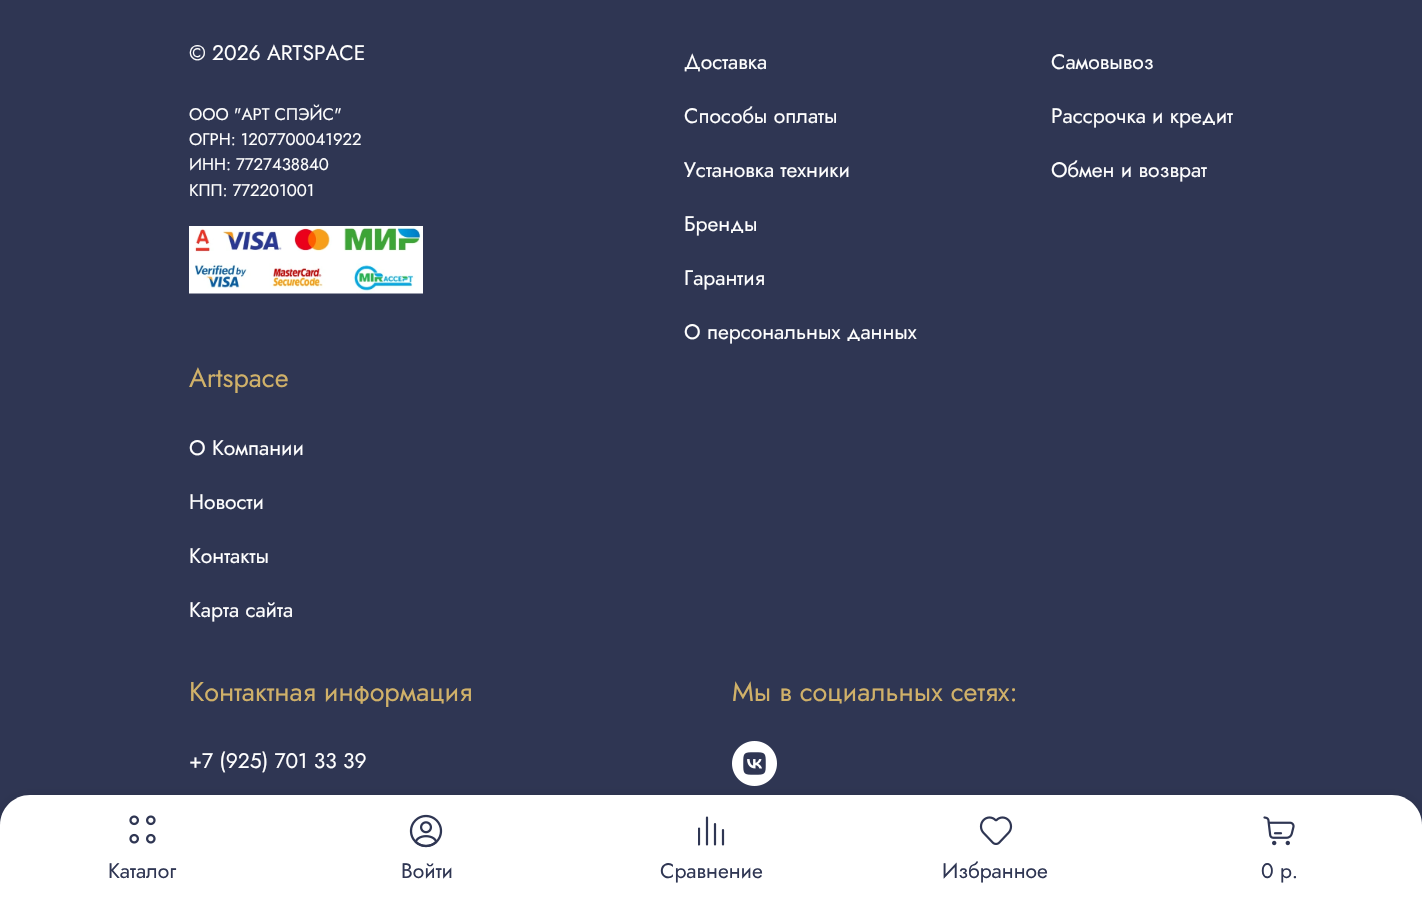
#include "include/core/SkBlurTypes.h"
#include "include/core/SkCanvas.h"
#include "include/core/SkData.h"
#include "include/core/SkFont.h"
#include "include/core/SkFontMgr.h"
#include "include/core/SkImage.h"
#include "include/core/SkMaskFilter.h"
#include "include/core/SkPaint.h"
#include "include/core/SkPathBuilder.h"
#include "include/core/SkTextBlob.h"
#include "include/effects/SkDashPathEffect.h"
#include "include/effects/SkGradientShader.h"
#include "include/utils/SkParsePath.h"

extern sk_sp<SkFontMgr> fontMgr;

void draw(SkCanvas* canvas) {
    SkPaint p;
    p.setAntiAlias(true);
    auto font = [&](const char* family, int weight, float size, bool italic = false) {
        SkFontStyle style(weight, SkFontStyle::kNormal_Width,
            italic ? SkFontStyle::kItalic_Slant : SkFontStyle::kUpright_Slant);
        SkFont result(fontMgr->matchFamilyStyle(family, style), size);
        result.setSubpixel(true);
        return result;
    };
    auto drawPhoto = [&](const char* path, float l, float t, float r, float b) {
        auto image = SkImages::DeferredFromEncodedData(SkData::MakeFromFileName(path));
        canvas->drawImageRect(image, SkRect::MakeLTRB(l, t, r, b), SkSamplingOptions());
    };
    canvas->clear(0xFF2F3653);
    auto font1 = font("Jost", 400, 21);
    p.setColor(0xFFFFFFFF);
    canvas->drawString("© 2026 ARTSPACE", 189, 60, font1, p);
    auto font2 = font("Jost", 400, 16.75f);
    {
        const struct { const char* s; float x, y; } items[] = {
            {"ООО \"АРТ СПЭЙС\"", 189, 120},
            {"ОГРН: 1207700041922", 189, 145},
            {"ИНН: 7727438840", 189, 170},
            {"КПП: 772201001", 189, 196},
        };
        for (auto [s, x, y] : items) {
            canvas->drawString(s, x, y, font2, p);
        }
    }
    drawPhoto("media/1.png", 189, 226, 423, 294);
    {
        const struct { const char* s; float x, y; } items[] = {
            {"Доставка", 684, 69},
            {"Способы оплаты", 684, 123},
            {"Установка техники", 684, 177},
            {"Бренды", 684, 231},
            {"Гарантия", 684, 285},
            {"О персональных данных", 684, 339},
            {"Самовывоз", 1051, 69},
            {"Рассрочка и кредит", 1051, 123},
            {"Обмен и возврат", 1051, 177},
        };
        for (auto [s, x, y] : items) {
            canvas->drawString(s, x, y, font1, p);
        }
    }
    auto font3 = font("Jost", 400, 27);
    p.setColor(0xFFD0B169);
    canvas->drawString("Artspace", 189, 387, font3, p);
    p.setColor(0xFFFFFFFF);
    {
        const struct { const char* s; float x, y; } items[] = {
            {"О Компании", 189, 455},
            {"Новости", 189, 509},
            {"Контакты", 189, 563},
            {"Карта сайта", 189, 617},
        };
        for (auto [s, x, y] : items) {
            canvas->drawString(s, x, y, font1, p);
        }
    }
    p.setColor(0xFFD0B169);
    canvas->drawString("Контактная информация", 189, 701, font3, p);
    p.setColor(0xFFFFFFFF);
    canvas->drawString("+7 (925) 701 33 39", 189, 768, font1, p);
    p.setColor(0xFFD0B169);
    canvas->drawString("Мы в социальных сетях:", 732, 701, font3, p);
    drawPhoto("media/2.png", 732, 741, 777, 786);
    p.setColor(0x26000000);
    p.setMaskFilter(SkMaskFilter::MakeBlur(kNormal_SkBlurStyle, 6));
    canvas->drawRoundRect(SkRect::MakeLTRB(0, 798, 1422, 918), 30, 30, p);
    p.setMaskFilter(nullptr);
    p.setColor(0xFFFFFFFF);
    canvas->drawPath(SkPathBuilder().moveTo(30, 795).lineTo(1392, 795).cubicTo(1408.5f, 795, 1422, 808.5f, 1422, 825).lineTo(1422, 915).lineTo(0, 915).lineTo(0, 825).cubicTo(0, 808.5f, 13.5f, 795, 30, 795).close().detach(), p);
    drawPhoto("media/3.png", 129, 815, 156, 844);
    p.setColor(0xFF2F3653);
    canvas->drawString("Каталог", 108, 878, font1, p);
    drawPhoto("media/4.png", 409, 814, 443, 848);
    canvas->drawString("Войти", 401, 878, font1, p);
    canvas->save();
    canvas->clipRect(SkRect::MakeLTRB(698, 816, 725, 846));
    p.setStyle(SkPaint::kStroke_Style);
    p.setStrokeWidth(2.2f);
    p.setStrokeCap(SkPaint::kRound_Cap);
    p.setStrokeJoin(SkPaint::kRound_Join);
    canvas->drawPath(SkPathBuilder().moveTo(699, 828.5f).lineTo(699, 844.5f).detach(), p);
    canvas->restore();
    canvas->drawPath(SkPathBuilder().moveTo(715, 824).lineTo(715, 844.5f).moveTo(707, 817.5f).lineTo(707, 844.5f).detach(), p);
    canvas->drawPath(SkPathBuilder().moveTo(723, 830).lineTo(723, 844.5f).detach(), p);
    p.setStyle(SkPaint::kFill_Style);
    canvas->drawString("Сравнение", 660, 878, font1, p);
    drawPhoto("media/5.png", 979, 816, 1013, 845);
    canvas->drawString("Избранное", 942, 878, font1, p);
    drawPhoto("media/6.png", 1263, 816, 1295, 846);
    canvas->drawString("0 р.", 1261, 878, font1, p);
}
